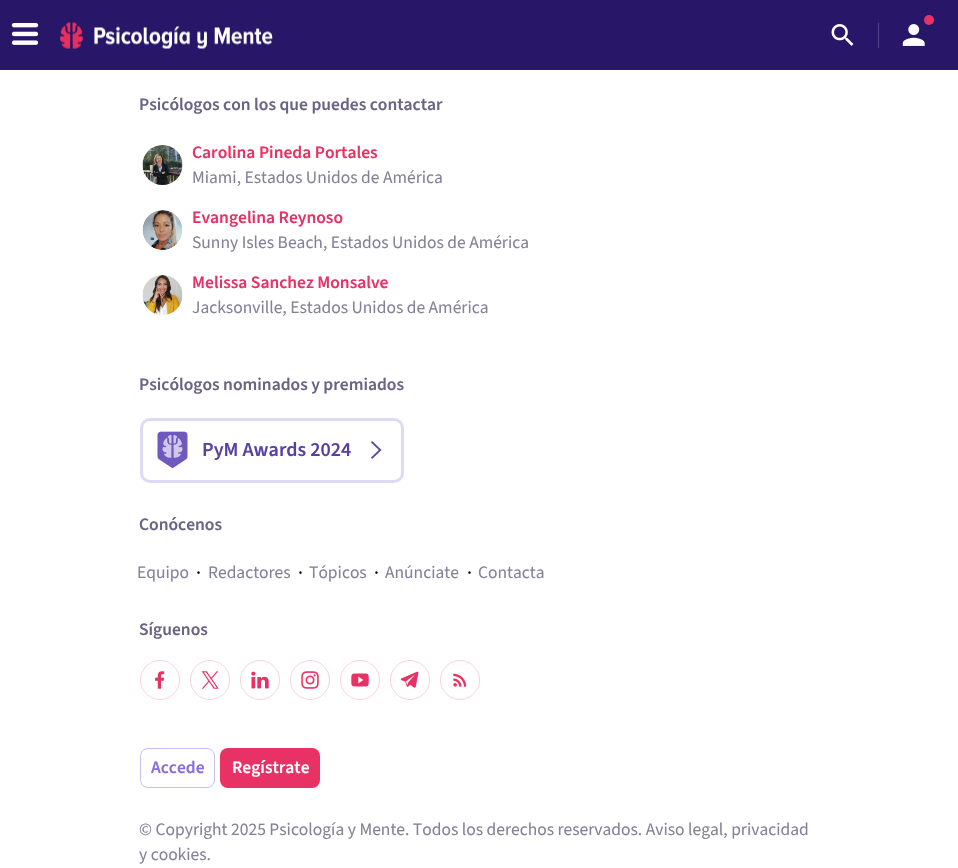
#include "include/core/SkBlurTypes.h"
#include "include/core/SkCanvas.h"
#include "include/core/SkData.h"
#include "include/core/SkFont.h"
#include "include/core/SkFontMgr.h"
#include "include/core/SkImage.h"
#include "include/core/SkMaskFilter.h"
#include "include/core/SkPaint.h"
#include "include/core/SkPathBuilder.h"
#include "include/core/SkTextBlob.h"
#include "include/effects/SkDashPathEffect.h"
#include "include/effects/SkGradientShader.h"
#include "include/utils/SkParsePath.h"

extern sk_sp<SkFontMgr> fontMgr;

void draw(SkCanvas* canvas) {
    SkPaint p;
    p.setAntiAlias(true);
    auto font = [&](const char* family, int weight, float size, bool italic = false) {
        SkFontStyle style(weight, SkFontStyle::kNormal_Width,
            italic ? SkFontStyle::kItalic_Slant : SkFontStyle::kUpright_Slant);
        SkFont result(fontMgr->matchFamilyStyle(family, style), size);
        result.setSubpixel(true);
        return result;
    };
    auto drawPhoto = [&](const char* path, float l, float t, float r, float b) {
        auto image = SkImages::DeferredFromEncodedData(SkData::MakeFromFileName(path));
        canvas->drawImageRect(image, SkRect::MakeLTRB(l, t, r, b), SkSamplingOptions());
    };
    canvas->clear(0xFFFFFFFF);
    p.setColor(0xFF281769);
    canvas->drawRect(SkRect::MakeLTRB(0, 0, 958, 70), p);
    drawPhoto("media/1.png", 11, 23, 39, 45);
    drawPhoto("media/2.png", 60, 22, 273, 49);
    drawPhoto("media/3.png", 831, 24, 854, 46);
    p.setColor(0xFF534587);
    canvas->drawRect(SkRect::MakeLTRB(878, 23, 879, 48), p);
    drawPhoto("media/4.png", 902, 24, 925, 46);
    p.setColor(0xFFE83164);
    canvas->drawCircle(929, 20, 5, p);
    auto font1 = font("Source Sans 3", 600, 17.5f);
    p.setColor(0xFF6A6383);
    canvas->drawString("Psicólogos con los que puedes contactar", 139, 110, font1, p);
    drawPhoto("media/5.png", 142, 145, 183, 185);
    p.setColor(0xFFE83164);
    canvas->drawString("Carolina Pineda Portales", 192, 158, font1, p);
    auto font2 = font("Source Sans 3", 400, 17.5f);
    p.setColor(0xFF868198);
    canvas->drawString("Miami, Estados Unidos de América", 192, 183, font2, p);
    drawPhoto("media/6.png", 142, 210, 183, 250);
    p.setColor(0xFFE83164);
    canvas->drawString("Evangelina Reynoso", 192, 223, font1, p);
    p.setColor(0xFF868198);
    canvas->drawString("Sunny Isles Beach, Estados Unidos de América", 192, 248, font2, p);
    drawPhoto("media/7.png", 142, 275, 183, 315);
    p.setColor(0xFFE83164);
    canvas->drawString("Melissa Sanchez Monsalve", 192, 288, font1, p);
    p.setColor(0xFF868198);
    canvas->drawString("Jacksonville, Estados Unidos de América", 192, 313, font2, p);
    p.setColor(0xFF6A6383);
    canvas->drawString("Psicólogos nominados y premiados", 139, 390, font1, p);
    p.setStyle(SkPaint::kStroke_Style);
    p.setStrokeWidth(3);
    p.setColor(0xFFDFDAF1);
    canvas->drawRoundRect(SkRect::MakeLTRB(141.5f, 419.5f, 402.5f, 481.5f), 8.5f, 8.5f, p);
    drawPhoto("media/8.png", 157, 431, 188, 469);
    auto font3 = font("Source Sans 3", 600, 20);
    p.setStyle(SkPaint::kFill_Style);
    p.setColor(0xFF5640A6);
    canvas->drawString("PyM Awards 2024", 202, 456, font3, p);
    canvas->drawPath(SkPathBuilder().moveTo(371, 442.5f).lineTo(372, 441).lineTo(381.5f, 450).lineTo(372, 459).lineTo(371, 457.5f).lineTo(379, 450).close().detach(), p);
    p.setColor(0xFF6A6383);
    canvas->drawString("Conócenos", 139, 530, font1, p);
    p.setColor(0xFF868198);
    canvas->drawString("Equipo", 137, 578, font2, p);
    auto font4 = font("Source Sans 3", 400, 20);
    p.setColor(0xFF000000);
    canvas->drawString("·", 196, 579, font4, p);
    p.setColor(0xFF868198);
    canvas->drawString("Redactores", 208, 578, font2, p);
    p.setColor(0xFF000000);
    canvas->drawString("·", 298, 579, font4, p);
    p.setColor(0xFF868198);
    canvas->drawString("Tópicos", 309, 578, font2, p);
    p.setColor(0xFF000000);
    canvas->drawString("·", 374, 579, font4, p);
    p.setColor(0xFF868198);
    canvas->drawString("Anúnciate", 385, 578, font2, p);
    p.setColor(0xFF000000);
    canvas->drawString("·", 467, 579, font4, p);
    p.setColor(0xFF868198);
    canvas->drawString("Contacta", 478, 578, font2, p);
    p.setColor(0xFF6A6383);
    canvas->drawString("Síguenos", 139, 635, font1, p);
    p.setStyle(SkPaint::kStroke_Style);
    p.setStrokeWidth(1);
    p.setColor(0xFFFAD1DD);
    canvas->drawCircle(160, 680, 19.5f, p);
    drawPhoto("media/9.png", 155, 671, 165, 689);
    canvas->drawCircle(210, 680, 19.5f, p);
    drawPhoto("media/10.png", 201, 671, 219, 689);
    canvas->drawCircle(260, 680, 19.5f, p);
    drawPhoto("media/11.png", 251, 671, 269, 689);
    canvas->drawCircle(310, 680, 19.5f, p);
    drawPhoto("media/12.png", 301, 671, 319, 689);
    canvas->drawCircle(360, 680, 19.5f, p);
    drawPhoto("media/13.png", 351, 673, 369, 687);
    canvas->drawCircle(410, 680, 19.5f, p);
    drawPhoto("media/14.png", 400, 671, 419, 688);
    canvas->drawCircle(460, 680, 19.5f, p);
    drawPhoto("media/15.png", 453, 673, 467, 687);
    p.setColor(0xFFCBC0F1);
    canvas->drawRoundRect(SkRect::MakeLTRB(140.5f, 748.5f, 214.5f, 787.5f), 7.5f, 7.5f, p);
    p.setStyle(SkPaint::kFill_Style);
    p.setColor(0xFF856DDF);
    canvas->drawString("Accede", 151, 773, font1, p);
    p.setColor(0xFFE83164);
    canvas->drawRoundRect(SkRect::MakeLTRB(220, 748, 320, 788), 8, 8, p);
    p.setColor(0xFFFFFFFF);
    canvas->drawString("Regístrate", 232, 773, font1, p);
    p.setColor(0xFF868198);
    canvas->drawString("© Copyright 2025 Psicología y Mente. Todos los derechos reservados. Aviso legal, privacidad", 139, 835, font2, p);
    canvas->drawString("y cookies.", 139, 860, font2, p);
}
